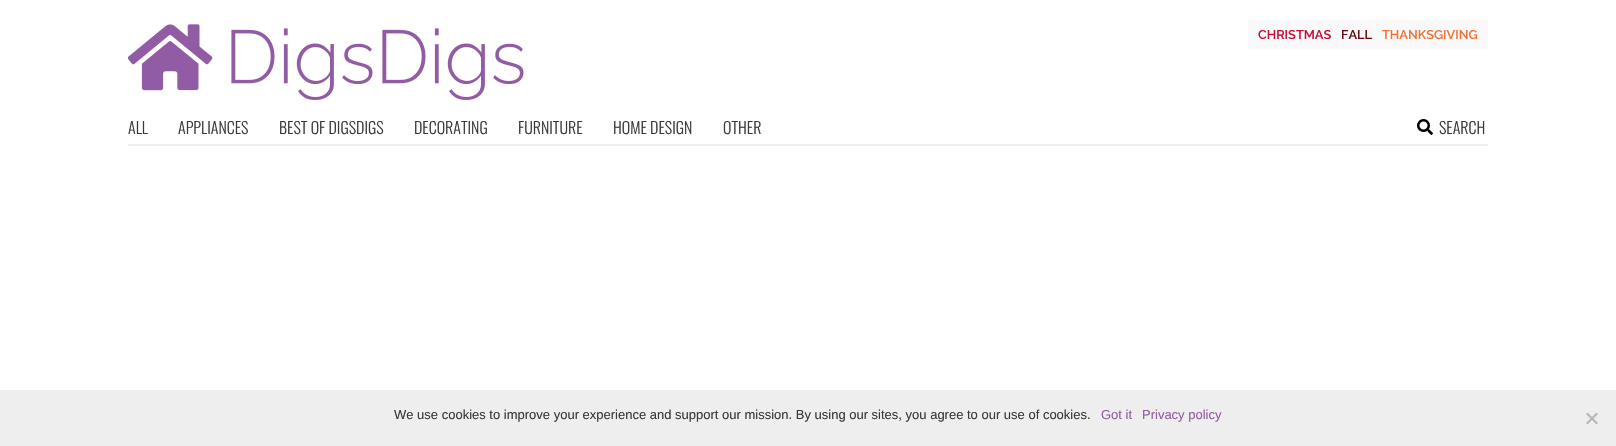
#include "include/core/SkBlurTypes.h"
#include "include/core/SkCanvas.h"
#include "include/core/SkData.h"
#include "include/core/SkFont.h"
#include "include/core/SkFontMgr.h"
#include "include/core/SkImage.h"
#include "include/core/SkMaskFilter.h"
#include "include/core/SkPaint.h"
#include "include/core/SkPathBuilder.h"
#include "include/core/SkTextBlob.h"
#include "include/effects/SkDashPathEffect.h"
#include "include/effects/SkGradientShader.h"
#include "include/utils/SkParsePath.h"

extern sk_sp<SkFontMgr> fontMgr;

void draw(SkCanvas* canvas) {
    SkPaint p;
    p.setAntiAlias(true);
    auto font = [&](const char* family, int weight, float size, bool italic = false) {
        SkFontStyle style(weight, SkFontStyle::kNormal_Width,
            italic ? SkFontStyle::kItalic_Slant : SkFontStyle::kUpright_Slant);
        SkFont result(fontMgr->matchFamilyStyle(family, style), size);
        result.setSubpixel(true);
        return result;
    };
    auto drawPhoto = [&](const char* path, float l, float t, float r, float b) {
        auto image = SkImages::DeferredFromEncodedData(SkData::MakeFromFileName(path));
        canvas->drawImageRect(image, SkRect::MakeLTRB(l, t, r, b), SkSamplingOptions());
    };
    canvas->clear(0xFFFFFFFF);
    drawPhoto("media/1.png", 128, 24, 524, 100);
    p.setColor(0xFFF9F9F9);
    canvas->drawRect(SkRect::MakeLTRB(1248, 20, 1488, 49), p);
    auto font1 = font("Raleway", 100, 12.75f);
    p.setColor(0xFFC41039);
    canvas->drawString("CHRISTMAS", 1258, 39, font1, p);
    p.setColor(0xFF680D13);
    canvas->drawString("FALL", 1341, 39, font1, p);
    p.setColor(0xFFF07236);
    canvas->drawString("THANKSGIVING", 1382, 39, font1, p);
    p.setColor(0xFFEEEEEE);
    canvas->drawRect(SkRect::MakeLTRB(128, 144, 1488, 146), p);
    auto font2 = font("Oswald", 300, 16);
    p.setColor(0xFF383838);
    {
        const struct { const char* s; float x, y; } items[] = {
            {"ALL", 128, 134},
            {"APPLIANCES", 178, 134},
            {"BEST OF DIGSDIGS", 279, 134},
            {"DECORATING", 414, 134},
            {"FURNITURE", 518, 134},
            {"HOME DESIGN", 613, 134},
            {"OTHER", 723, 134},
        };
        for (auto [s, x, y] : items) {
            canvas->drawString(s, x, y, font2, p);
        }
    }
    drawPhoto("media/2.png", 1417, 119, 1433, 135);
    canvas->drawString("SEARCH", 1439, 134, font2, p);
    p.setColor(0xFFEEEEEE);
    canvas->drawRect(SkRect::MakeLTRB(0, 390, 1616, 446), p);
    auto font3 = font("Liberation Sans", 400, 13);
    p.setColor(0xFF383838);
    canvas->drawString("We use cookies to improve your experience and support our mission. By using our sites, you agree to our use of cookies.", 394, 419, font3, p);
    p.setColor(0xFF925CA4);
    canvas->drawString("Got it", 1101, 419, font3, p);
    canvas->drawString("Privacy policy", 1142, 419, font3, p);
    p.setColor(0xFFB7B7B7);
    canvas->drawPath(SkPathBuilder().moveTo(1596.5f, 412.5f).lineTo(1598, 414).lineTo(1587.5f, 424.5f).lineTo(1586, 423).close().detach(), p);
    canvas->drawPath(SkPathBuilder().moveTo(1586, 414).lineTo(1587.5f, 412.5f).lineTo(1598, 423).lineTo(1596.5f, 424.5f).close().detach(), p);
}
